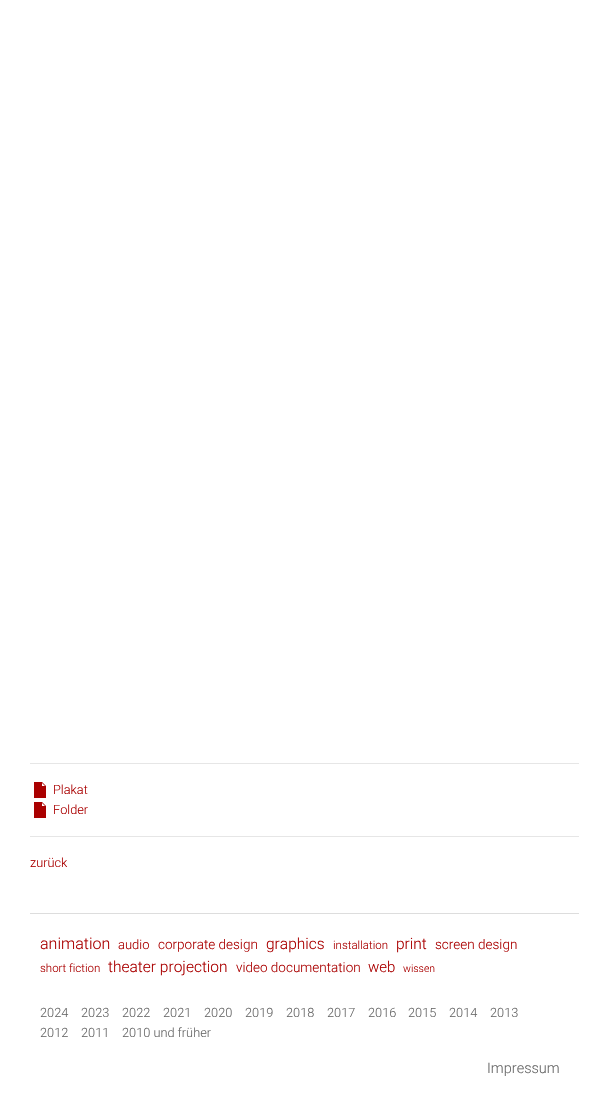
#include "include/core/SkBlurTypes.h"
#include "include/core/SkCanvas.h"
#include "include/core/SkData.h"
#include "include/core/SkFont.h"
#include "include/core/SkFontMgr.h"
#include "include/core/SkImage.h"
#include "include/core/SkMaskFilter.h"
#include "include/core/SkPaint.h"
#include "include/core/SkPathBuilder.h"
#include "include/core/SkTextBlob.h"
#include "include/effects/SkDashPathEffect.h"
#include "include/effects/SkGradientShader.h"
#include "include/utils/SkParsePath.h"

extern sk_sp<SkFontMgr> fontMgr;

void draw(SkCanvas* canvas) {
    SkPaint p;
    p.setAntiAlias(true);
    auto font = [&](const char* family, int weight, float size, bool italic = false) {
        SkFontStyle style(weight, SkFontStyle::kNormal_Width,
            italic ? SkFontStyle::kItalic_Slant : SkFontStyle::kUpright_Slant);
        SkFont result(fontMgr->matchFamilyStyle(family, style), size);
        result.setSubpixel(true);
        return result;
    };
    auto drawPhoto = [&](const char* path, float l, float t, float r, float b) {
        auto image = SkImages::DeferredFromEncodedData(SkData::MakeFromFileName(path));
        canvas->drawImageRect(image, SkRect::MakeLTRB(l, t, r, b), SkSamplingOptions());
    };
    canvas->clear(0xFFFFFFFF);
    p.setColor(0xFFE6E6E6);
    canvas->drawRect(SkRect::MakeLTRB(30, 763, 579, 764), p);
    drawPhoto("media/1.png", 34, 782, 46, 798);
    auto font1 = font("Roboto", 300, 12.75f);
    p.setColor(0xFFAA0000);
    canvas->drawString("Plakat", 53, 794, font1, p);
    drawPhoto("media/1.png", 34, 802, 46, 818);
    canvas->drawString("Folder", 53, 814, font1, p);
    p.setColor(0xFFE6E6E6);
    canvas->drawRect(SkRect::MakeLTRB(30, 836, 579, 837), p);
    p.setColor(0xFFAA0000);
    canvas->drawString("zurück", 30, 867, font1, p);
    p.setColor(0xFFDDDDDD);
    canvas->drawRect(SkRect::MakeLTRB(30, 913, 579, 914), p);
    auto font2 = font("Roboto", 300, 16);
    p.setColor(0xFFAA0000);
    canvas->drawString("animation", 40, 949, font2, p);
    auto font3 = font("Roboto", 300, 13);
    canvas->drawString("audio", 118, 949, font3, p);
    auto font4 = font("Roboto", 300, 13.5f);
    canvas->drawString("corporate design", 158, 949, font4, p);
    auto font5 = font("Roboto", 300, 15.5f);
    canvas->drawString("graphics", 266, 949, font5, p);
    auto font6 = font("Roboto", 300, 11.5f);
    canvas->drawString("installation", 333, 949, font6, p);
    canvas->drawString("print", 396, 949, font5, p);
    canvas->drawString("screen design", 435, 949, font4, p);
    canvas->drawString("short fiction", 40, 972, font6, p);
    canvas->drawString("theater projection", 108, 972, font5, p);
    canvas->drawString("video documentation", 236, 972, font4, p);
    auto font7 = font("Roboto", 300, 15);
    canvas->drawString("web", 368, 972, font7, p);
    auto font8 = font("Roboto", 300, 10.5f);
    canvas->drawString("wissen", 403, 972, font8, p);
    p.setColor(0xFF666666);
    {
        const struct { const char* s; float x, y; } items[] = {
            {"2024", 40, 1017},
            {"2023", 81, 1017},
            {"2022", 122, 1017},
            {"2021", 163, 1017},
            {"2020", 204, 1017},
            {"2019", 245, 1017},
            {"2018", 286, 1017},
            {"2017", 327, 1017},
            {"2016", 368, 1017},
            {"2015", 408, 1017},
            {"2014", 449, 1017},
            {"2013", 490, 1017},
            {"2012", 40, 1037},
            {"2011", 81, 1037},
            {"2010 und früher", 122, 1037},
        };
        for (auto [s, x, y] : items) {
            canvas->drawString(s, x, y, font1, p);
        }
    }
    auto font9 = font("Roboto", 300, 14.5f);
    canvas->drawString("Impressum", 487, 1073, font9, p);
}
